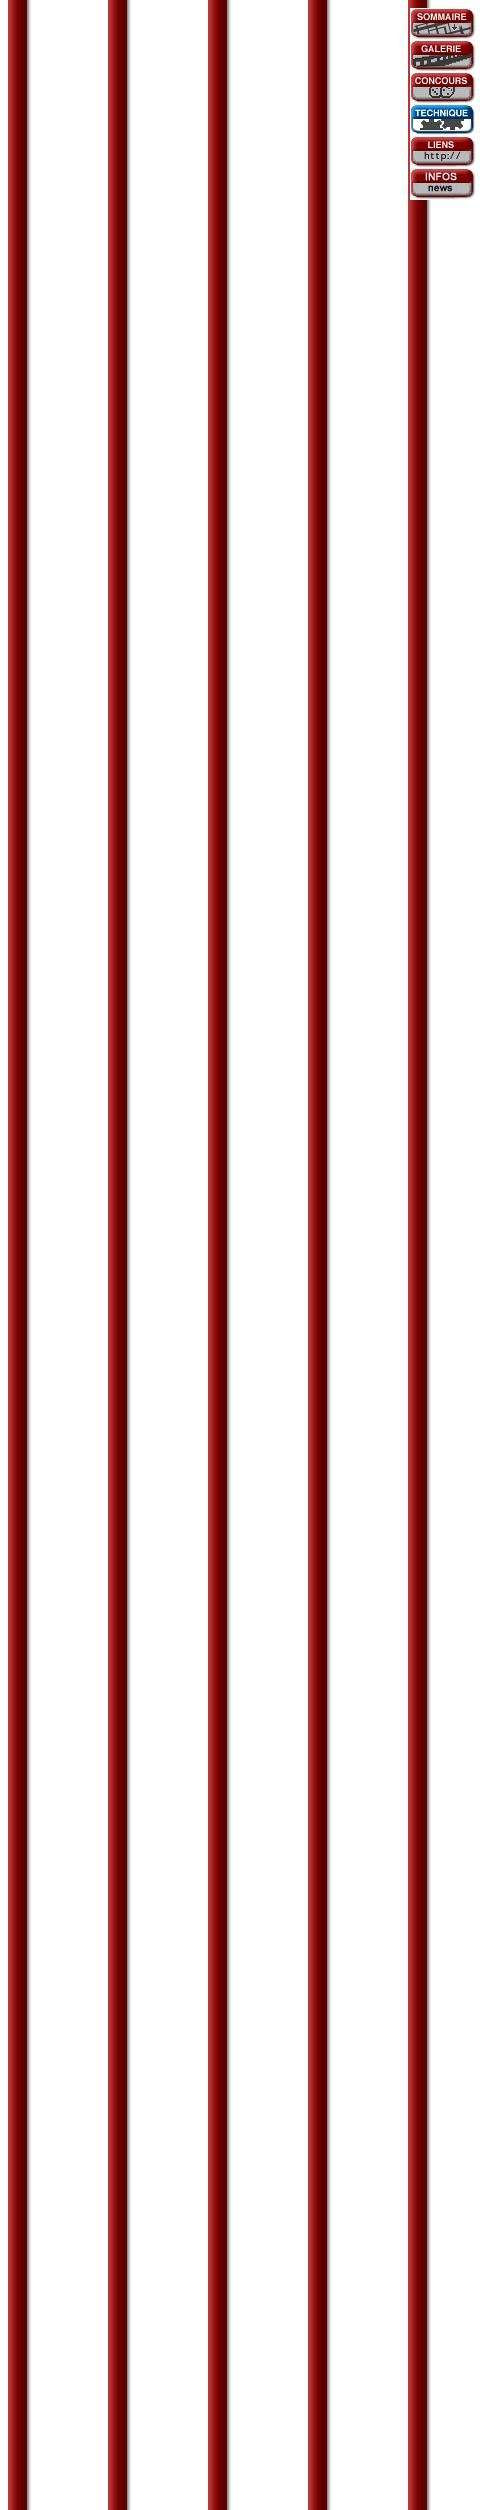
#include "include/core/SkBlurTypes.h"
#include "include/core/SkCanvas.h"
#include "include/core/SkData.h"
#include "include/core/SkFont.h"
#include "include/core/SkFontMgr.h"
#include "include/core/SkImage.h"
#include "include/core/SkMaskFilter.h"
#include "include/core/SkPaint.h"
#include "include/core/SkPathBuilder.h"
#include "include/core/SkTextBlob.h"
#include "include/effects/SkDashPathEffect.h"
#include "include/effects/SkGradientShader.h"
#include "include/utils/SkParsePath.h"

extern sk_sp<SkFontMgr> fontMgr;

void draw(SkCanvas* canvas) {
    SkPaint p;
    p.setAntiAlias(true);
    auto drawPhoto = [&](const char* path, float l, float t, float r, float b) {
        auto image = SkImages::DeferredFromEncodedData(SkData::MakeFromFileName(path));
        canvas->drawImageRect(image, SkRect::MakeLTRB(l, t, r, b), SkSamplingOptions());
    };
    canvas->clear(0xFFFFFFFF);
    drawPhoto("media/1.png", 8, 0, 431, 2510);
    drawPhoto("media/2.png", 410, 8, 476, 40);
    drawPhoto("media/3.png", 410, 40, 476, 72);
    drawPhoto("media/4.png", 410, 72, 476, 104);
    drawPhoto("media/5.png", 410, 104, 475, 136);
    drawPhoto("media/6.png", 410, 136, 476, 168);
    drawPhoto("media/7.png", 410, 168, 476, 200);
}
